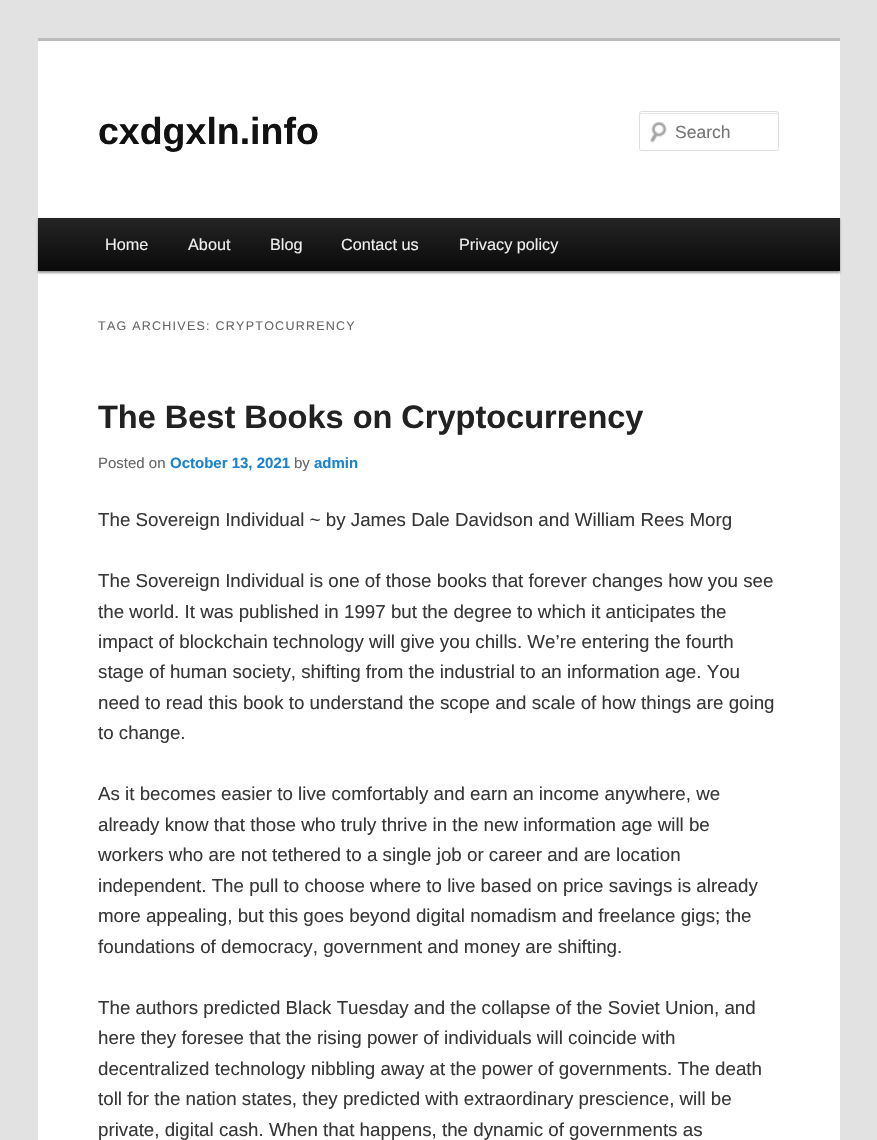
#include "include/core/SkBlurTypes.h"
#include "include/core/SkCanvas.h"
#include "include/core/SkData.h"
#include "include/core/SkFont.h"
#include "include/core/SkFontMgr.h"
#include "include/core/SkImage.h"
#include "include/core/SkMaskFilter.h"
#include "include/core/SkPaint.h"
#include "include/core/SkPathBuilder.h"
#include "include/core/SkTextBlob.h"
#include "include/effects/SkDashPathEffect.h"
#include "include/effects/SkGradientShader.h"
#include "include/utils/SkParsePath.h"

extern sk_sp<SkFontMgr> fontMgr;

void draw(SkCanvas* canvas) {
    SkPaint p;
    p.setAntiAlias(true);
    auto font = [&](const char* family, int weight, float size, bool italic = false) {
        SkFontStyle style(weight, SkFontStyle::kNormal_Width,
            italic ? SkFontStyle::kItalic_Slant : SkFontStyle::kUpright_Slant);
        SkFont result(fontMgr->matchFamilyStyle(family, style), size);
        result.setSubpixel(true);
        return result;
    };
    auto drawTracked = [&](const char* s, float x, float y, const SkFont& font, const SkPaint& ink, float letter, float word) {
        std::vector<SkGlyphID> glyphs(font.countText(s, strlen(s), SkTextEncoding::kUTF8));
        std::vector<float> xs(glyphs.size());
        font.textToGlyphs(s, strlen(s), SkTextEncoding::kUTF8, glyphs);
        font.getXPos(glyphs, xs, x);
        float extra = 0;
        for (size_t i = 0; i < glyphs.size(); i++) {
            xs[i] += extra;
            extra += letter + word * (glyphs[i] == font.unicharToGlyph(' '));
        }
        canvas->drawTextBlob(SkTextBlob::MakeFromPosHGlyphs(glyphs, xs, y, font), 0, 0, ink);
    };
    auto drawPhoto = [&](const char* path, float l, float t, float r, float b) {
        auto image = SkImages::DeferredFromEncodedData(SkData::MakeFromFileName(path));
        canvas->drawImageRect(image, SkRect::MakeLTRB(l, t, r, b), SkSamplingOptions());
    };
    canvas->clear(0xFFE2E2E2);
    p.setColor(0xFFFFFFFF);
    canvas->drawRect(SkRect::MakeLTRB(38, 41, 840, 1140), p);
    p.setColor(0xFFBBBBBB);
    canvas->drawRect(SkRect::MakeLTRB(38, 38, 840, 41), p);
    auto font1 = font("Liberation Sans", 700, 37.5f);
    p.setColor(0xFF111111);
    canvas->drawString("cxdgxln.info", 98, 144, font1, p);
    drawPhoto("media/1.png", 650, 121, 667, 143);
    p.setColor(0xFFE6E6E6);
    canvas->drawPath(SkPathBuilder().moveTo(641, 114).lineTo(776, 114).cubicTo(777, 114, 778, 114, 778, 115).cubicTo(778, 114, 778, 113, 777, 113).lineTo(641, 113).cubicTo(640, 113, 640, 114, 640, 115).close().detach(), p);
    p.setStyle(SkPaint::kStroke_Style);
    p.setStrokeWidth(1);
    p.setColor(0xFFDDDDDD);
    canvas->drawRoundRect(SkRect::MakeLTRB(639.5f, 111.5f, 778.5f, 150.5f), 2, 2, p);
    auto font2 = font("Liberation Sans", 400, 17.5f);
    p.setStyle(SkPaint::kFill_Style);
    p.setColor(0xFF757575);
    canvas->drawString("Search", 675, 138, font2, p);
    p.setColor(0x66000000);
    p.setMaskFilter(SkMaskFilter::MakeBlur(kNormal_SkBlurStyle, 1));
    canvas->drawRect(SkRect::MakeLTRB(38, 219, 840, 273), p);
    p.setMaskFilter(nullptr);
    {
        const SkColor colors[] = {0xFF252525, 0xFF0A0A0A};
        const float stops[] = {0, 1};
        const SkPoint ends[] = {{439, 217}, {439, 271}};
        p.setShader(SkGradientShader::MakeLinear(ends, colors, stops, 2, SkTileMode::kClamp));
        p.setAlpha(255);
    }
    canvas->drawRect(SkRect::MakeLTRB(38, 218, 840, 271), p);
    auto font3 = font("Liberation Sans", 400, 16.25f);
    p.setShader(nullptr);
    p.setColor(0xFFEEEEEE);
    {
        const struct { const char* s; float x, y; } items[] = {
            {"Home", 105, 250},
            {"About", 188, 250},
            {"Blog", 270, 250},
            {"Contact us", 341, 250},
            {"Privacy policy", 459, 250},
        };
        for (auto [s, x, y] : items) {
            canvas->drawString(s, x, y, font3, p);
        }
    }
    auto font4 = font("Liberation Sans", 400, 12.5f);
    p.setColor(0xFF666666);
    drawTracked("TAG ARCHIVES: CRYPTOCURRENCY", 98, 330, font4, p, 1.25f, 0);
    auto font5 = font("Liberation Sans", 700, 32.5f);
    p.setColor(0xFF222222);
    canvas->drawString("The Best Books on Cryptocurrency", 98, 428, font5, p);
    auto font6 = font("Liberation Sans", 400, 15);
    p.setColor(0xFF666666);
    canvas->drawString("Posted on", 98, 468, font6, p);
    auto font7 = font("Liberation Sans", 700, 15);
    p.setColor(0xFF1982D1);
    canvas->drawString("October 13, 2021", 170, 468, font7, p);
    p.setColor(0xFF666666);
    canvas->drawString("by", 294, 468, font6, p);
    p.setColor(0xFF1982D1);
    canvas->drawString("admin", 314, 468, font7, p);
    auto font8 = font("Liberation Sans", 400, 18.75f);
    p.setColor(0xFF373737);
    {
        const struct { const char* s; float x, y; } items[] = {
            {"The Sovereign Individual ~ by James Dale Davidson and William Rees Morg", 98, 526},
            {"The Sovereign Individual is one of those books that forever changes how you see", 98, 587},
            {"the world. It was published in 1997 but the degree to which it anticipates the", 98, 618},
            {"impact of blockchain technology will give you chills. We’re entering the fourth", 98, 648},
            {"stage of human society, shifting from the industrial to an information age. You", 98, 678},
            {"need to read this book to understand the scope and scale of how things are going", 98, 709},
            {"to change.", 98, 739},
            {"As it becomes easier to live comfortably and earn an income anywhere, we", 98, 800},
            {"already know that those who truly thrive in the new information age will be", 98, 831},
            {"workers who are not tethered to a single job or career and are location", 98, 861},
            {"independent. The pull to choose where to live based on price savings is already", 98, 892},
            {"more appealing, but this goes beyond digital nomadism and freelance gigs; the", 98, 922},
            {"foundations of democracy, government and money are shifting.", 98, 953},
            {"The authors predicted Black Tuesday and the collapse of the Soviet Union, and", 98, 1014},
            {"here they foresee that the rising power of individuals will coincide with", 98, 1044},
            {"decentralized technology nibbling away at the power of governments. The death", 98, 1075},
            {"toll for the nation states, they predicted with extraordinary prescience, will be", 98, 1105},
            {"private, digital cash. When that happens, the dynamic of governments as", 98, 1136},
        };
        for (auto [s, x, y] : items) {
            canvas->drawString(s, x, y, font8, p);
        }
    }
}
